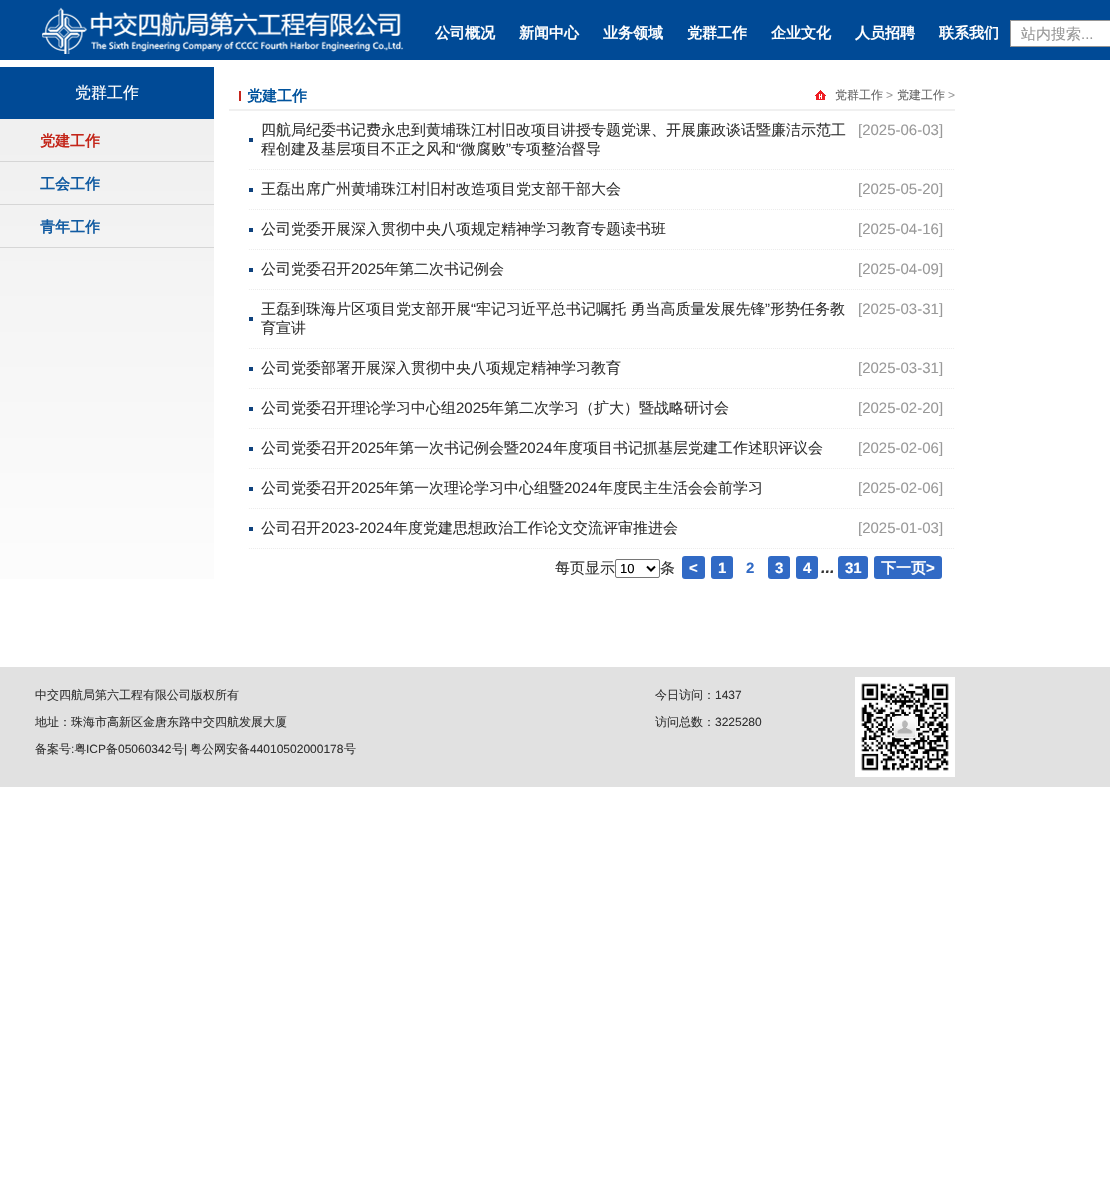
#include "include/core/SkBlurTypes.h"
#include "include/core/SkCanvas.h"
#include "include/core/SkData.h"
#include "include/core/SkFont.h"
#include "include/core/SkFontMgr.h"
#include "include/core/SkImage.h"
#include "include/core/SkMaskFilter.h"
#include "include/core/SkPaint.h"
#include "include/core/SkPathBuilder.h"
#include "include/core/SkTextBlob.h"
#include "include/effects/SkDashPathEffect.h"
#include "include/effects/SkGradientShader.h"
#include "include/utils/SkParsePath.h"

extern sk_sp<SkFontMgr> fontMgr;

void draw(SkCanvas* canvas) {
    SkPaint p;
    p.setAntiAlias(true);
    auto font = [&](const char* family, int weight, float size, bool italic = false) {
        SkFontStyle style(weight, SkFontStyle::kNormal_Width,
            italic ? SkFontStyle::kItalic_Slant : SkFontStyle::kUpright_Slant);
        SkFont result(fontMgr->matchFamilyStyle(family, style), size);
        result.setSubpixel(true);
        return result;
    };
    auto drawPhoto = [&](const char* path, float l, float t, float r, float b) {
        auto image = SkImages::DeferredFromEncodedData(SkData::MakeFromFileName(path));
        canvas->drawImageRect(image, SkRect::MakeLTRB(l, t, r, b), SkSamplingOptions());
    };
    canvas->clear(0xFFFFFFFF);
    p.setColor(0xFF004A96);
    canvas->drawRect(SkRect::MakeLTRB(0, 0, 1110, 60), p);
    drawPhoto("media/1.png", 42, 7, 404, 54);
    auto font1 = font("WenQuanYi Zen Hei", 700, 15);
    p.setColor(0xFFFFFFFF);
    {
        const struct { const char* s; float x, y; } items[] = {
            {"公司概况", 435, 38},
            {"新闻中心", 519, 38},
            {"业务领域", 603, 38},
            {"党群工作", 687, 38},
            {"企业文化", 771, 38},
            {"人员招聘", 855, 38},
            {"联系我们", 939, 38},
        };
        for (auto [s, x, y] : items) {
            canvas->drawString(s, x, y, font1, p);
        }
    }
    canvas->drawRect(SkRect::MakeLTRB(1010.5f, 20.5f, 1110.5f, 46.5f), p);
    p.setStyle(SkPaint::kStroke_Style);
    p.setStrokeWidth(1);
    p.setColor(0xFF969696);
    canvas->drawRect(SkRect::MakeLTRB(1010.5f, 20.5f, 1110.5f, 46.5f), p);
    auto font2 = font("WenQuanYi Zen Hei", 500, 15);
    p.setStyle(SkPaint::kFill_Style);
    p.setColor(0xFF999999);
    canvas->drawString("站内搜索", 1021, 39, font2, p);
    auto font3 = font("Liberation Sans", 400, 15);
    canvas->drawString("...", 1081, 39, font3, p);
    {
        const SkColor colors[] = {0xFFEEEEEE, 0xFFFFFFFF};
        const float stops[] = {0, 1};
        const SkPoint ends[] = {{107, 67}, {107, 667}};
        p.setShader(SkGradientShader::MakeLinear(ends, colors, stops, 2, SkTileMode::kClamp));
        p.setAlpha(255);
    }
    canvas->drawRect(SkRect::MakeLTRB(0, 119, 214, 579), p);
    p.setShader(nullptr);
    p.setColor(0xFF004A96);
    canvas->drawRect(SkRect::MakeLTRB(0, 67, 214, 119), p);
    auto font4 = font("WenQuanYi Zen Hei", 500, 16);
    p.setColor(0xFFFFFFFF);
    canvas->drawString("党群工作", 75, 98, font4, p);
    p.setColor(0xFFD6D6D6);
    canvas->drawRect(SkRect::MakeLTRB(0, 161, 214, 162), p);
    p.setColor(0xFFC4261A);
    canvas->drawString("党建工作", 40, 146, font1, p);
    p.setColor(0xFFD6D6D6);
    canvas->drawRect(SkRect::MakeLTRB(0, 204, 214, 205), p);
    p.setColor(0xFF115BA2);
    canvas->drawString("工会工作", 40, 189, font1, p);
    p.setColor(0xFFD6D6D6);
    canvas->drawRect(SkRect::MakeLTRB(0, 247, 214, 248), p);
    p.setColor(0xFF115BA2);
    canvas->drawString("青年工作", 40, 232, font1, p);
    p.setColor(0xFFF0F0F0);
    canvas->drawRect(SkRect::MakeLTRB(229, 109, 955, 111), p);
    p.setColor(0xFF01539D);
    canvas->drawString("党建工作", 247, 101, font1, p);
    p.setColor(0xFFC6251D);
    canvas->drawRect(SkRect::MakeLTRB(239, 91, 241, 101), p);
    drawPhoto("media/2.png", 815, 90, 826, 100);
    auto font5 = font("WenQuanYi Zen Hei", 500, 12);
    p.setColor(0xFF666666);
    canvas->drawString("党群工作", 835, 99, font5, p);
    auto font6 = font("Liberation Sans", 400, 12);
    p.setColor(0xFF999999);
    canvas->drawString(">", 886, 99, font6, p);
    p.setColor(0xFF666666);
    canvas->drawString("党建工作", 897, 99, font5, p);
    p.setColor(0xFF999999);
    canvas->drawString(">", 948, 99, font6, p);
    p.setColor(0xFF0F427D);
    canvas->drawRect(SkRect::MakeLTRB(249, 138, 253, 142), p);
    p.setStyle(SkPaint::kStroke_Style);
    p.setColor(0xFFECECEC);
    p.setPathEffect(SkDashPathEffect::Make({{1, 1}}, 0));
    canvas->drawPath(SkPathBuilder().moveTo(249, 169.5f).lineTo(955, 169.5f).detach(), p);
    p.setPathEffect(nullptr);
    p.setStyle(SkPaint::kFill_Style);
    p.setColor(0xFF333333);
    canvas->drawString("四航局纪委书记费永忠到黄埔珠江村旧改项目讲授专题党课、开展廉政谈话暨廉洁示范工", 261, 135, font2, p);
    p.setColor(0xFF999999);
    canvas->drawString("[2025-06-03]", 858, 135, font3, p);
    p.setColor(0xFF333333);
    canvas->drawString("程创建及基层项目不正之风和", 261, 154, font2, p);
    canvas->drawString("“", 456, 154, font3, p);
    canvas->drawString("微腐败", 461, 154, font2, p);
    canvas->drawString("”", 506, 154, font3, p);
    canvas->drawString("专项整治督导", 511, 154, font2, p);
    p.setColor(0xFF0F427D);
    canvas->drawRect(SkRect::MakeLTRB(249, 188, 253, 192), p);
    p.setStyle(SkPaint::kStroke_Style);
    p.setColor(0xFFECECEC);
    p.setPathEffect(SkDashPathEffect::Make({{1, 1}}, 0));
    canvas->drawPath(SkPathBuilder().moveTo(249, 209.5f).lineTo(955, 209.5f).detach(), p);
    p.setPathEffect(nullptr);
    p.setStyle(SkPaint::kFill_Style);
    p.setColor(0xFF333333);
    canvas->drawString("王磊出席广州黄埔珠江村旧村改造项目党支部干部大会", 261, 194, font2, p);
    p.setColor(0xFF999999);
    canvas->drawString("[2025-05-20]", 858, 194, font3, p);
    p.setColor(0xFF0F427D);
    canvas->drawRect(SkRect::MakeLTRB(249, 228, 253, 232), p);
    p.setStyle(SkPaint::kStroke_Style);
    p.setColor(0xFFECECEC);
    p.setPathEffect(SkDashPathEffect::Make({{1, 1}}, 0));
    canvas->drawPath(SkPathBuilder().moveTo(249, 249.5f).lineTo(955, 249.5f).detach(), p);
    p.setPathEffect(nullptr);
    p.setStyle(SkPaint::kFill_Style);
    p.setColor(0xFF333333);
    canvas->drawString("公司党委开展深入贯彻中央八项规定精神学习教育专题读书班", 261, 234, font2, p);
    p.setColor(0xFF999999);
    canvas->drawString("[2025-04-16]", 858, 234, font3, p);
    p.setColor(0xFF0F427D);
    canvas->drawRect(SkRect::MakeLTRB(249, 268, 253, 272), p);
    p.setStyle(SkPaint::kStroke_Style);
    p.setColor(0xFFECECEC);
    p.setPathEffect(SkDashPathEffect::Make({{1, 1}}, 0));
    canvas->drawPath(SkPathBuilder().moveTo(249, 289.5f).lineTo(955, 289.5f).detach(), p);
    p.setPathEffect(nullptr);
    p.setStyle(SkPaint::kFill_Style);
    p.setColor(0xFF333333);
    canvas->drawString("公司党委召开", 261, 274, font2, p);
    canvas->drawString("2025", 351, 274, font3, p);
    canvas->drawString("年第二次书记例会", 384, 274, font2, p);
    p.setColor(0xFF999999);
    canvas->drawString("[2025-04-09]", 858, 274, font3, p);
    p.setColor(0xFF0F427D);
    canvas->drawRect(SkRect::MakeLTRB(249, 317, 253, 321), p);
    p.setStyle(SkPaint::kStroke_Style);
    p.setColor(0xFFECECEC);
    p.setPathEffect(SkDashPathEffect::Make({{1, 1}}, 0));
    canvas->drawPath(SkPathBuilder().moveTo(249, 348.5f).lineTo(955, 348.5f).detach(), p);
    p.setPathEffect(nullptr);
    p.setStyle(SkPaint::kFill_Style);
    p.setColor(0xFF333333);
    canvas->drawString("王磊到珠海片区项目党支部开展", 261, 314, font2, p);
    canvas->drawString("“", 471, 314, font3, p);
    canvas->drawString("牢记习近平总书记嘱托 勇当高质量发展先锋", 476, 314, font2, p);
    canvas->drawString("”", 765, 314, font3, p);
    canvas->drawString("形势任务教", 770, 314, font2, p);
    p.setColor(0xFF999999);
    canvas->drawString("[2025-03-31]", 858, 314, font3, p);
    p.setColor(0xFF333333);
    canvas->drawString("育宣讲", 261, 333, font2, p);
    p.setColor(0xFF0F427D);
    canvas->drawRect(SkRect::MakeLTRB(249, 367, 253, 371), p);
    p.setStyle(SkPaint::kStroke_Style);
    p.setColor(0xFFECECEC);
    p.setPathEffect(SkDashPathEffect::Make({{1, 1}}, 0));
    canvas->drawPath(SkPathBuilder().moveTo(249, 388.5f).lineTo(955, 388.5f).detach(), p);
    p.setPathEffect(nullptr);
    p.setStyle(SkPaint::kFill_Style);
    p.setColor(0xFF333333);
    canvas->drawString("公司党委部署开展深入贯彻中央八项规定精神学习教育", 261, 373, font2, p);
    p.setColor(0xFF999999);
    canvas->drawString("[2025-03-31]", 858, 373, font3, p);
    p.setColor(0xFF0F427D);
    canvas->drawRect(SkRect::MakeLTRB(249, 407, 253, 411), p);
    p.setStyle(SkPaint::kStroke_Style);
    p.setColor(0xFFECECEC);
    p.setPathEffect(SkDashPathEffect::Make({{1, 1}}, 0));
    canvas->drawPath(SkPathBuilder().moveTo(249, 428.5f).lineTo(955, 428.5f).detach(), p);
    p.setPathEffect(nullptr);
    p.setStyle(SkPaint::kFill_Style);
    p.setColor(0xFF333333);
    canvas->drawString("公司党委召开理论学习中心组", 261, 413, font2, p);
    canvas->drawString("2025", 456, 413, font3, p);
    canvas->drawString("年第二次学习（扩大）暨战略研讨会", 489, 413, font2, p);
    p.setColor(0xFF999999);
    canvas->drawString("[2025-02-20]", 858, 413, font3, p);
    p.setColor(0xFF0F427D);
    canvas->drawRect(SkRect::MakeLTRB(249, 447, 253, 451), p);
    p.setStyle(SkPaint::kStroke_Style);
    p.setColor(0xFFECECEC);
    p.setPathEffect(SkDashPathEffect::Make({{1, 1}}, 0));
    canvas->drawPath(SkPathBuilder().moveTo(249, 468.5f).lineTo(955, 468.5f).detach(), p);
    p.setPathEffect(nullptr);
    p.setStyle(SkPaint::kFill_Style);
    p.setColor(0xFF333333);
    canvas->drawString("公司党委召开", 261, 453, font2, p);
    canvas->drawString("2025", 351, 453, font3, p);
    canvas->drawString("年第一次书记例会暨", 384, 453, font2, p);
    canvas->drawString("2024", 519, 453, font3, p);
    canvas->drawString("年度项目书记抓基层党建工作述职评议会", 553, 453, font2, p);
    p.setColor(0xFF999999);
    canvas->drawString("[2025-02-06]", 858, 453, font3, p);
    p.setColor(0xFF0F427D);
    canvas->drawRect(SkRect::MakeLTRB(249, 487, 253, 491), p);
    p.setStyle(SkPaint::kStroke_Style);
    p.setColor(0xFFECECEC);
    p.setPathEffect(SkDashPathEffect::Make({{1, 1}}, 0));
    canvas->drawPath(SkPathBuilder().moveTo(249, 508.5f).lineTo(955, 508.5f).detach(), p);
    p.setPathEffect(nullptr);
    p.setStyle(SkPaint::kFill_Style);
    p.setColor(0xFF333333);
    canvas->drawString("公司党委召开", 261, 493, font2, p);
    canvas->drawString("2025", 351, 493, font3, p);
    canvas->drawString("年第一次理论学习中心组暨", 384, 493, font2, p);
    canvas->drawString("2024", 564, 493, font3, p);
    canvas->drawString("年度民主生活会会前学习", 598, 493, font2, p);
    p.setColor(0xFF999999);
    canvas->drawString("[2025-02-06]", 858, 493, font3, p);
    p.setColor(0xFF0F427D);
    canvas->drawRect(SkRect::MakeLTRB(249, 527, 253, 531), p);
    p.setStyle(SkPaint::kStroke_Style);
    p.setColor(0xFFECECEC);
    p.setPathEffect(SkDashPathEffect::Make({{1, 1}}, 0));
    canvas->drawPath(SkPathBuilder().moveTo(249, 548.5f).lineTo(955, 548.5f).detach(), p);
    p.setPathEffect(nullptr);
    p.setStyle(SkPaint::kFill_Style);
    p.setColor(0xFF333333);
    canvas->drawString("公司召开", 261, 533, font2, p);
    canvas->drawString("2023-2024", 321, 533, font3, p);
    canvas->drawString("年度党建思想政治工作论文交流评审推进会", 393, 533, font2, p);
    p.setColor(0xFF999999);
    canvas->drawString("[2025-01-03]", 858, 533, font3, p);
    p.setColor(0xFF333333);
    canvas->drawString("每页显示", 555, 573, font2, p);
    p.setStyle(SkPaint::kStroke_Style);
    p.setColor(0xFF767676);
    canvas->drawRoundRect(SkRect::MakeLTRB(615.5f, 559.5f, 659.5f, 577.5f), 1.5f, 1.5f, p);
    p.setStrokeWidth(2);
    p.setColor(0xFF000000);
    canvas->drawPath(SkPathBuilder().moveTo(647, 566.5f).lineTo(651, 570.5f).lineTo(655, 566.5f).detach(), p);
    auto font7 = font("Liberation Sans", 400, 13);
    p.setStyle(SkPaint::kFill_Style);
    canvas->drawString("10", 620, 573, font7, p);
    p.setColor(0xFF333333);
    canvas->drawString("条", 660, 573, font2, p);
    p.setColor(0xFF316AC5);
    canvas->drawRoundRect(SkRect::MakeLTRB(682, 556, 705, 579), 3, 3, p);
    auto font8 = font("Liberation Sans", 700, 15);
    p.setColor(0xFFFFFFFF);
    canvas->drawString("<", 689, 573, font8, p);
    p.setColor(0xFF316AC5);
    canvas->drawRoundRect(SkRect::MakeLTRB(711, 556, 733, 579), 3, 3, p);
    p.setColor(0xFFFFFFFF);
    canvas->drawString("1", 718, 573, font8, p);
    p.setColor(0xFF316AC5);
    canvas->drawString("2", 746, 573, font8, p);
    canvas->drawRoundRect(SkRect::MakeLTRB(768, 556, 790, 579), 3, 3, p);
    p.setColor(0xFFFFFFFF);
    canvas->drawString("3", 775, 573, font8, p);
    p.setColor(0xFF316AC5);
    canvas->drawRoundRect(SkRect::MakeLTRB(796, 556, 818, 579), 3, 3, p);
    p.setColor(0xFFFFFFFF);
    canvas->drawString("4", 803, 573, font8, p);
    auto font9 = font("Liberation Sans", 700, 16, true);
    p.setColor(0xFF333333);
    canvas->drawString("...", 821, 573, font9, p);
    p.setColor(0xFF316AC5);
    canvas->drawRoundRect(SkRect::MakeLTRB(838, 556, 868, 579), 3, 3, p);
    p.setColor(0xFFFFFFFF);
    canvas->drawString("31", 845, 573, font8, p);
    p.setColor(0xFF316AC5);
    canvas->drawRoundRect(SkRect::MakeLTRB(874, 556, 942, 579), 3, 3, p);
    p.setColor(0xFFFFFFFF);
    canvas->drawString("下一页", 881, 573, font1, p);
    canvas->drawString(">", 926, 573, font8, p);
    p.setColor(0xFFE1E1E1);
    canvas->drawRect(SkRect::MakeLTRB(0, 667, 1110, 787), p);
    p.setColor(0xFF333333);
    {
        const struct { const char* s; float x, y; } items[] = {
            {"中交四航局第六工程有限公司版权所有", 35, 699},
            {"地址：珠海市高新区金唐东路中交四航发展大厦", 35, 726},
            {"备案号 粤", 35, 753},
        };
        for (auto [s, x, y] : items) {
            canvas->drawString(s, x, y, font5, p);
        }
    }
    canvas->drawString("ICP", 86, 753, font6, p);
    canvas->drawString("备", 106, 753, font5, p);
    canvas->drawString("05060342", 118, 753, font6, p);
    canvas->drawString("号", 172, 753, font5, p);
    canvas->drawString("|", 184, 753, font6, p);
    canvas->drawString("粤公网安备", 190, 753, font5, p);
    canvas->drawString("44010502000178", 250, 753, font6, p);
    canvas->drawString("号", 344, 753, font5, p);
    canvas->drawString(":", 71, 753, font6, p);
    canvas->drawString("今日访问：", 655, 699, font5, p);
    canvas->drawString("1437", 715, 699, font6, p);
    canvas->drawString("访问总数：", 655, 726, font5, p);
    canvas->drawString("3225280", 715, 726, font6, p);
    drawPhoto("media/3.png", 855, 677, 955, 777);
}
